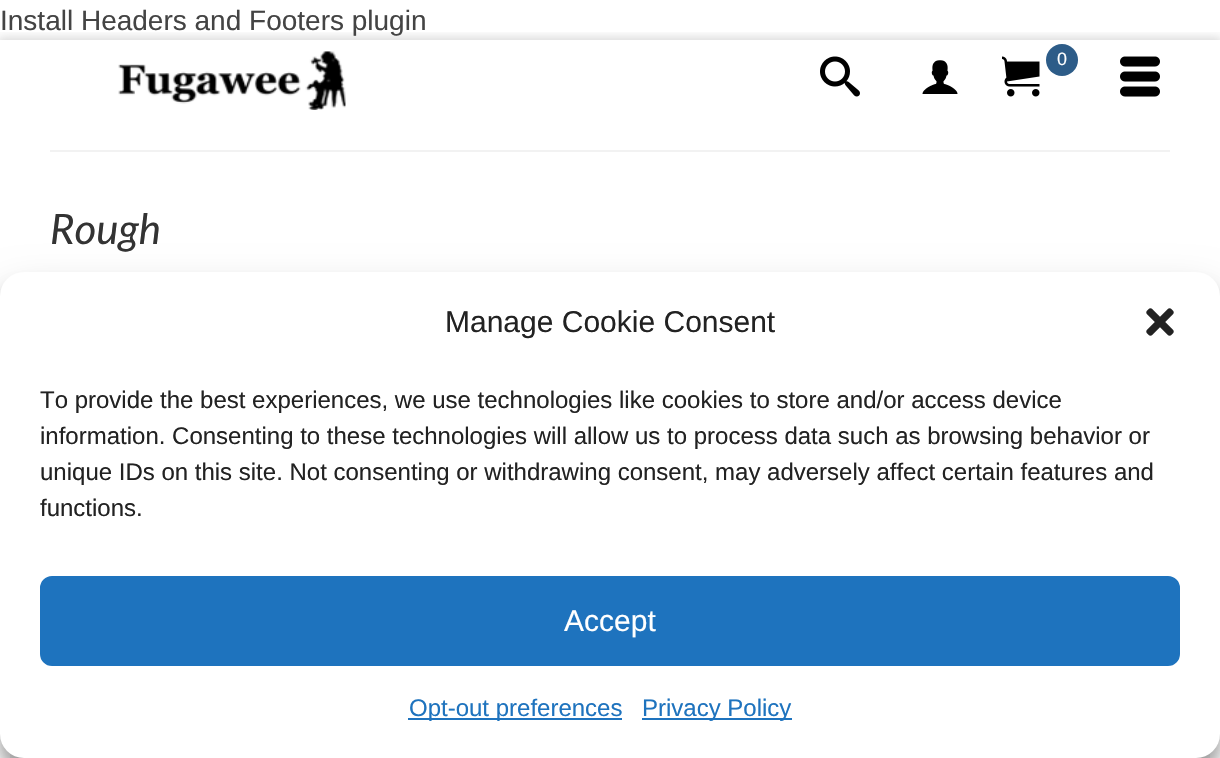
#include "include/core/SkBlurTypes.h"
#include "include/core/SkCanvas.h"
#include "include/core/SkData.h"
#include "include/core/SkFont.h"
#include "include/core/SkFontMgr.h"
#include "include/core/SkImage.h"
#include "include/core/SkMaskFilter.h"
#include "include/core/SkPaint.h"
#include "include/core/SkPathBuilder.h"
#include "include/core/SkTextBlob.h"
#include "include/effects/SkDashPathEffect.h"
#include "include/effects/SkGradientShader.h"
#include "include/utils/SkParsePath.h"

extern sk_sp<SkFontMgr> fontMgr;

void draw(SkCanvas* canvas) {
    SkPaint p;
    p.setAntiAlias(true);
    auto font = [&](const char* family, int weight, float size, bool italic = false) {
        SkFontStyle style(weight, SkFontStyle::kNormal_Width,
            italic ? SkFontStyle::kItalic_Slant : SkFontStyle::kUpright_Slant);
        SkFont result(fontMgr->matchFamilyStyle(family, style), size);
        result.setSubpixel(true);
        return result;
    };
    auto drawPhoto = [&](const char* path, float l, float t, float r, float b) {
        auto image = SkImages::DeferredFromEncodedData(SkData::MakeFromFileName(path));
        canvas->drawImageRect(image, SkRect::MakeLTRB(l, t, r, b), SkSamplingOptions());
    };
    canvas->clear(0xFFFFFFFF);
    canvas->save();
    canvas->clipRect(SkRect::MakeLTRB(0, 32, 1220, 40));
    p.setColor(0x29000000);
    p.setMaskFilter(SkMaskFilter::MakeBlur(kNormal_SkBlurStyle, 5));
    canvas->drawRect(SkRect::MakeLTRB(-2, 38, 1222, 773), p);
    p.setMaskFilter(nullptr);
    canvas->restore();
    auto font1 = font("Liberation Sans", 400, 28);
    p.setColor(0xFF444444);
    canvas->drawString("Install Headers and Footers plugin", 0, 30, font1, p);
    drawPhoto("media/1.png", 118, 51, 346, 110);
    drawPhoto("media/2.png", 820, 56, 860, 97);
    drawPhoto("media/3.png", 922, 60, 958, 94);
    drawPhoto("media/4.png", 1002, 56, 1040, 97);
    p.setColor(0xFF2D5C88);
    canvas->drawCircle(1062, 60, 16, p);
    auto font2 = font("Liberation Sans", 400, 18);
    p.setColor(0xFFFFFFFF);
    canvas->drawString("0", 1057, 65, font2, p);
    drawPhoto("media/5.png", 1120, 56, 1160, 97);
    p.setColor(0xFFF2F2F2);
    canvas->drawRect(SkRect::MakeLTRB(50, 150, 1170, 152), p);
    auto font3 = font("Lato", 400, 42, true);
    p.setColor(0xFF333333);
    canvas->drawString("Rough", 50, 244, font3, p);
    p.setColor(0xFFF2F2F2);
    canvas->drawRect(SkRect::MakeLTRB(10, 753, 1210, 758), p);
    p.setColor(0x3B000000);
    p.setMaskFilter(SkMaskFilter::MakeBlur(kNormal_SkBlurStyle, 6));
    canvas->drawRoundRect(SkRect::MakeLTRB(0, 284, 1220, 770), 24, 24, p);
    p.setMaskFilter(nullptr);
    p.setColor(0x30000000);
    p.setMaskFilter(SkMaskFilter::MakeBlur(kNormal_SkBlurStyle, 20));
    canvas->drawRoundRect(SkRect::MakeLTRB(0, 292, 1220, 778), 24, 24, p);
    p.setMaskFilter(nullptr);
    p.setColor(0xFFFFFFFF);
    canvas->drawRoundRect(SkRect::MakeLTRB(0, 272, 1220, 758), 24, 24, p);
    auto font4 = font("Liberation Sans", 400, 30);
    p.setColor(0xFF222222);
    canvas->drawString("Manage Cookie Consent", 445, 332, font4, p);
    drawPhoto("media/6.png", 1146, 308, 1174, 336);
    auto font5 = font("Liberation Sans", 400, 24);
    {
        const struct { const char* s; float x, y; } items[] = {
            {"To provide the best experiences, we use technologies like cookies to store and/or access device", 40, 408},
            {"information. Consenting to these technologies will allow us to process data such as browsing behavior or", 40, 444},
            {"unique IDs on this site. Not consenting or withdrawing consent, may adversely affect certain features and", 40, 480},
            {"functions.", 40, 516},
        };
        for (auto [s, x, y] : items) {
            canvas->drawString(s, x, y, font5, p);
        }
    }
    p.setColor(0xFF1E73BE);
    canvas->drawRoundRect(SkRect::MakeLTRB(41, 577, 1179, 665), 11, 11, p);
    p.setStyle(SkPaint::kStroke_Style);
    p.setStrokeWidth(2);
    canvas->drawRoundRect(SkRect::MakeLTRB(41, 577, 1179, 665), 11, 11, p);
    p.setStyle(SkPaint::kFill_Style);
    p.setColor(0xFFFFFFFF);
    canvas->drawString("Accept", 564, 631, font4, p);
    p.setColor(0xFF1E73BE);
    canvas->drawRect(SkRect::MakeLTRB(408, 718, 622, 720), p);
    canvas->drawString("Opt-out preferences", 409, 716, font5, p);
    canvas->drawRect(SkRect::MakeLTRB(642, 718, 792, 720), p);
    canvas->drawString("Privacy Policy", 642, 716, font5, p);
}
